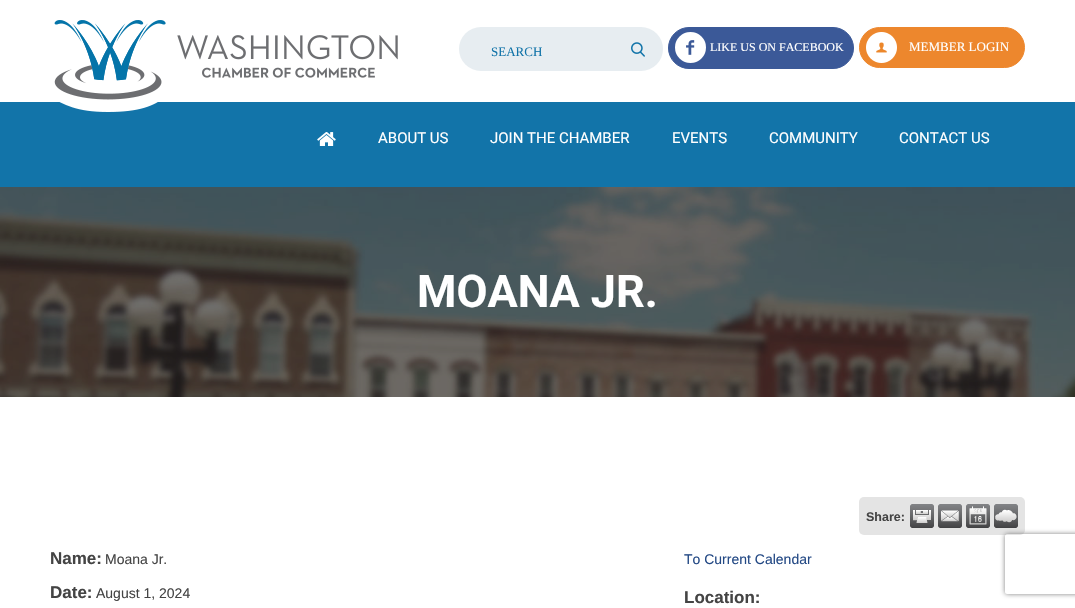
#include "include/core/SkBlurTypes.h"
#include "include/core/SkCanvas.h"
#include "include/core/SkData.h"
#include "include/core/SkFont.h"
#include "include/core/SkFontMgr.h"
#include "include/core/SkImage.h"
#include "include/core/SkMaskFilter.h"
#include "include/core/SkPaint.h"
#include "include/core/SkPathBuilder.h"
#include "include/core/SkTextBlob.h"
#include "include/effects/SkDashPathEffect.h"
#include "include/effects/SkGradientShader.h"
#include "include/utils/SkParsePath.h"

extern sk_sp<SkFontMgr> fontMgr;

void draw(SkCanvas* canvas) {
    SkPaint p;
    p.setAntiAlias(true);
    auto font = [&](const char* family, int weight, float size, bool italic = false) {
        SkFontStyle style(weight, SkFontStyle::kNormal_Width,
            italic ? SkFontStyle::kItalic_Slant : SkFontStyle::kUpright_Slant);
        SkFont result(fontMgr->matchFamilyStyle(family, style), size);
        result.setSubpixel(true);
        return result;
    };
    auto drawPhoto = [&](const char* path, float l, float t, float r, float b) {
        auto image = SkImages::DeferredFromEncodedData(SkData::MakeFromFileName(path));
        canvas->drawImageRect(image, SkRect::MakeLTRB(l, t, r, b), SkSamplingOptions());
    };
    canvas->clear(0xFFFFFFFF);
    p.setColor(0xFF1274A9);
    canvas->drawRect(SkRect::MakeLTRB(0, 102, 1075, 187), p);
    drawPhoto("media/1.png", 54, 20, 398, 112);
    p.setColor(0xFFE7EDF1);
    canvas->drawRoundRect(SkRect::MakeLTRB(459, 27, 663, 71), 22, 22, p);
    auto font1 = font("Liberation Serif", 400, 13);
    p.setColor(0xFF1274A9);
    canvas->drawString("SEARCH", 491, 56, font1, p);
    drawPhoto("media/2.png", 631, 42, 645, 57);
    p.setColor(0xFF3B5998);
    canvas->drawRoundRect(SkRect::MakeLTRB(668.5f, 27.5f, 853.5f, 68.5f), 20.5f, 20.5f, p);
    p.setStyle(SkPaint::kStroke_Style);
    p.setStrokeWidth(1);
    canvas->drawRoundRect(SkRect::MakeLTRB(668.5f, 27.5f, 853.5f, 68.5f), 20.5f, 20.5f, p);
    drawPhoto("media/3.png", 675, 32, 706, 63);
    auto font2 = font("Liberation Serif", 400, 12);
    p.setStyle(SkPaint::kFill_Style);
    p.setColor(0xFFFFFFFF);
    canvas->drawString("LIKE US ON FACEBOOK", 710, 51, font2, p);
    p.setColor(0xFFED872D);
    canvas->drawRoundRect(SkRect::MakeLTRB(859.5f, 27.5f, 1024.5f, 67.5f), 20, 20, p);
    p.setStyle(SkPaint::kStroke_Style);
    canvas->drawRoundRect(SkRect::MakeLTRB(859.5f, 27.5f, 1024.5f, 67.5f), 20, 20, p);
    drawPhoto("media/4.png", 866, 32, 897, 63);
    p.setStyle(SkPaint::kFill_Style);
    p.setColor(0xFFFFFFFF);
    canvas->drawString("MEMBER LOGIN", 909, 51, font1, p);
    drawPhoto("media/5.png", 317, 132, 336, 146);
    auto font3 = font("Roboto", 400, 15);
    {
        const struct { const char* s; float x, y; } items[] = {
            {"ABOUT US", 378, 143},
            {"JOIN THE CHAMBER", 490, 143},
            {"EVENTS", 672, 143},
            {"COMMUNITY", 769, 143},
            {"CONTACT US", 899, 143},
        };
        for (auto [s, x, y] : items) {
            canvas->drawString(s, x, y, font3, p);
        }
    }
    drawPhoto("media/6.png", 0, 187, 1075, 397);
    auto font4 = font("Roboto", 700, 45);
    canvas->drawString("MOANA JR.", 417, 307, font4, p);
    p.setColor(0xFFE4E4E4);
    canvas->drawRoundRect(SkRect::MakeLTRB(859, 497, 1025, 535), 5, 5, p);
    auto font5 = font("Liberation Sans", 700, 12.5f);
    p.setColor(0xFF444444);
    canvas->drawString("Share:", 866, 521, font5, p);
    drawPhoto("media/7.png", 910, 504, 934, 528);
    drawPhoto("media/8.png", 938, 504, 962, 528);
    drawPhoto("media/9.png", 966, 504, 990, 528);
    drawPhoto("media/10.png", 994, 504, 1018, 528);
    auto font6 = font("Liberation Sans", 700, 17);
    canvas->drawString("Name:", 50, 564, font6, p);
    auto font7 = font("Liberation Sans", 400, 14);
    canvas->drawString("Moana Jr.", 105, 564, font7, p);
    canvas->drawString("Date:", 50, 598, font6, p);
    canvas->drawString("August 1, 2024", 96, 598, font7, p);
    p.setColor(0xFF224884);
    canvas->drawString("To Current Calendar", 684, 564, font7, p);
    p.setColor(0xFF444444);
    canvas->drawString("Location:", 684, 603, font6, p);
    canvas->save();
    canvas->clipPath(SkPathBuilder(SkPathFillType::kEvenOdd).moveTo(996, 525).lineTo(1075, 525).lineTo(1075, 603).lineTo(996, 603).close().moveTo(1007, 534).lineTo(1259, 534).cubicTo(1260, 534, 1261, 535, 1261, 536).lineTo(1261, 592).cubicTo(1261, 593, 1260, 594, 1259, 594).lineTo(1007, 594).cubicTo(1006, 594, 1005, 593, 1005, 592).lineTo(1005, 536).cubicTo(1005, 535, 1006, 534, 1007, 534).close().detach(), true);
    p.setColor(0xFF808080);
    p.setMaskFilter(SkMaskFilter::MakeBlur(kNormal_SkBlurStyle, 2.5f));
    canvas->drawRoundRect(SkRect::MakeLTRB(1005, 534, 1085, 594), 2, 2, p);
    p.setMaskFilter(nullptr);
    canvas->restore();
}
